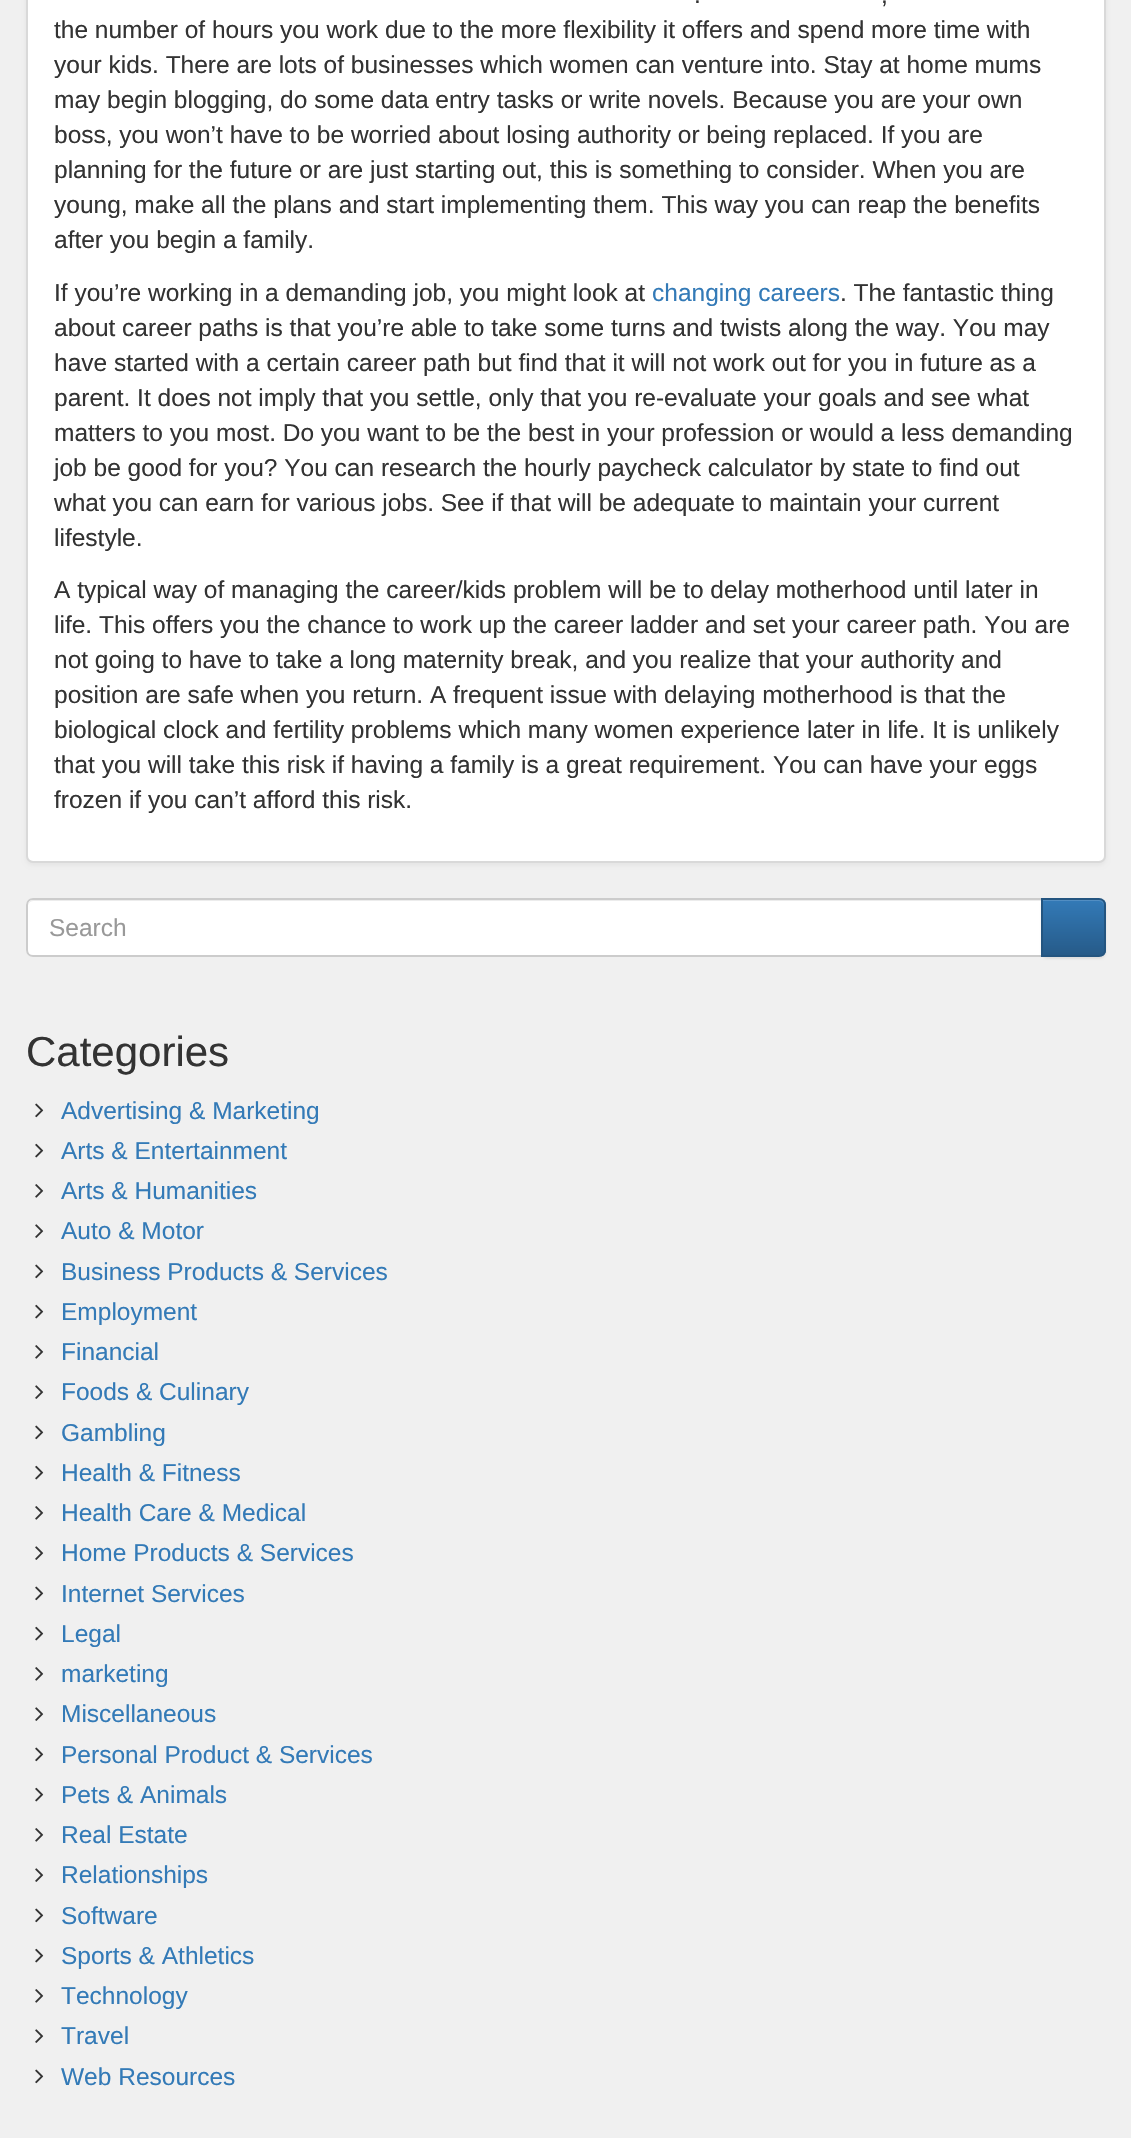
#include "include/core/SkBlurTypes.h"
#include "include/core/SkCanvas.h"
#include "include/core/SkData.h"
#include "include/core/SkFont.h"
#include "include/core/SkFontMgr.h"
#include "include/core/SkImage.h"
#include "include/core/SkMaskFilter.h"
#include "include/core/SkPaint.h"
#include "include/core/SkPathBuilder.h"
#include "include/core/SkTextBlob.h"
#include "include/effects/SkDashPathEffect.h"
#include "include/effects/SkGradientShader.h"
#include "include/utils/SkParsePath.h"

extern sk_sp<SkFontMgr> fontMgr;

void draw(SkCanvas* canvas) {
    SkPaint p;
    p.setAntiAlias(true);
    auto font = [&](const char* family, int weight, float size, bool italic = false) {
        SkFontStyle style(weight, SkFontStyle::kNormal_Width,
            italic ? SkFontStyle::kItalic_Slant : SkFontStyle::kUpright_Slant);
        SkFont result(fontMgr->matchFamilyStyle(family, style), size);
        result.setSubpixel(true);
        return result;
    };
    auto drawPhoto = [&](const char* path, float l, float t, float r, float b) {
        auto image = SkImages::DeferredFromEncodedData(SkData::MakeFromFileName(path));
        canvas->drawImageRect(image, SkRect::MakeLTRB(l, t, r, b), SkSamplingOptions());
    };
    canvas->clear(0xFFF0F0F0);
    p.setColor(0x0D000000);
    p.setMaskFilter(SkMaskFilter::MakeBlur(kNormal_SkBlurStyle, 2));
    canvas->drawRoundRect(SkRect::MakeLTRB(26, -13, 1106, 865), 7, 7, p);
    p.setMaskFilter(nullptr);
    p.setColor(0xFFFFFFFF);
    canvas->drawRoundRect(SkRect::MakeLTRB(27, -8, 1105, 862), 6, 6, p);
    p.setStyle(SkPaint::kStroke_Style);
    p.setStrokeWidth(2);
    p.setColor(0xFFD9D9D9);
    canvas->drawRoundRect(SkRect::MakeLTRB(27, -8, 1105, 862), 6, 6, p);
    auto font1 = font("Liberation Sans", 400, 24.5f);
    p.setStyle(SkPaint::kFill_Style);
    p.setColor(0xFF333333);
    {
        const struct { const char* s; float x, y; } items[] = {
            {".", 694, 3},
            {",", 881, 3},
            {"the number of hours you work due to the more flexibility it offers and spend more time with", 54, 38},
            {"your kids. There are lots of businesses which women can venture into. Stay at home mums", 54, 73},
            {"may begin blogging, do some data entry tasks or write novels. Because you are your own", 54, 108},
            {"boss, you won’t have to be worried about losing authority or being replaced. If you are", 54, 143},
            {"planning for the future or are just starting out, this is something to consider. When you are", 54, 178},
            {"young, make all the plans and start implementing them. This way you can reap the benefits", 54, 213},
            {"after you begin a family.", 54, 248},
            {"If you’re working in a demanding job, you might look at", 54, 301},
        };
        for (auto [s, x, y] : items) {
            canvas->drawString(s, x, y, font1, p);
        }
    }
    p.setColor(0xFF337AB7);
    canvas->drawString("changing careers", 652, 301, font1, p);
    p.setColor(0xFF333333);
    {
        const struct { const char* s; float x, y; } items[] = {
            {". The fantastic thing", 840, 301},
            {"about career paths is that you’re able to take some turns and twists along the way. You may", 54, 336},
            {"have started with a certain career path but find that it will not work out for you in future as a", 54, 371},
            {"parent. It does not imply that you settle, only that you re-evaluate your goals and see what", 54, 406},
            {"matters to you most. Do you want to be the best in your profession or would a less demanding", 54, 441},
            {"job be good for you? You can research the hourly paycheck calculator by state to find out", 54, 476},
            {"what you can earn for various jobs. See if that will be adequate to maintain your current", 54, 511},
            {"lifestyle.", 54, 546},
            {"A typical way of managing the career/kids problem will be to delay motherhood until later in", 54, 598},
            {"life. This offers you the chance to work up the career ladder and set your career path. You are", 54, 633},
            {"not going to have to take a long maternity break, and you realize that your authority and", 54, 668},
            {"position are safe when you return. A frequent issue with delaying motherhood is that the", 54, 703},
            {"biological clock and fertility problems which many women experience later in life. It is unlikely", 54, 738},
            {"that you will take this risk if having a family is a great requirement. You can have your eggs", 54, 773},
            {"frozen if you can’t afford this risk.", 54, 808},
        };
        for (auto [s, x, y] : items) {
            canvas->drawString(s, x, y, font1, p);
        }
    }
    p.setColor(0xFFFFFFFF);
    canvas->drawPath(SkPathBuilder().moveTo(33, 898).lineTo(1043, 898).lineTo(1043, 957).lineTo(33, 957).cubicTo(29, 957, 26, 954, 26, 950).lineTo(26, 905).cubicTo(26, 901, 29, 898, 33, 898).close().detach(), p);
    p.setColor(0xFFECECEC);
    canvas->drawPath(SkPathBuilder().moveTo(33, 901).lineTo(1041, 901).lineTo(1041, 900).lineTo(33, 900).cubicTo(30, 900, 28, 903, 28, 906).cubicTo(28, 904, 30, 901, 33, 901).close().detach(), p);
    p.setStyle(SkPaint::kStroke_Style);
    p.setColor(0xFFCCCCCC);
    canvas->drawPath(SkPathBuilder().moveTo(33, 899).lineTo(1042, 899).lineTo(1042, 956).lineTo(33, 956).cubicTo(29.5f, 956, 27, 953.5f, 27, 950).lineTo(27, 905).cubicTo(27, 901.5f, 29.5f, 899, 33, 899).close().detach(), p);
    p.setStyle(SkPaint::kFill_Style);
    p.setColor(0xFF999999);
    canvas->drawString("Search", 49, 936, font1, p);
    p.setColor(0x12000000);
    p.setMaskFilter(SkMaskFilter::MakeBlur(kNormal_SkBlurStyle, 1));
    canvas->drawRoundRect(SkRect::MakeLTRB(1041, 900, 1106, 959), 7, 7, p);
    p.setMaskFilter(nullptr);
    canvas->save();
    canvas->clipPath(SkPathBuilder().moveTo(1041, 898).lineTo(1099, 898).cubicTo(1103, 898, 1106, 901, 1106, 905).lineTo(1106, 950).cubicTo(1106, 954, 1103, 957, 1099, 957).lineTo(1041, 957).close().detach(), true);
    {
        const SkColor colors[] = {0xFF337AB7, 0xFF265A88};
        const float stops[] = {0, 1};
        const SkPoint ends[] = {{1074, 900}, {1074, 956}};
        p.setShader(SkGradientShader::MakeLinear(ends, colors, stops, 2, SkTileMode::kClamp));
        p.setAlpha(255);
    }
    canvas->drawRect(SkRect::MakeLTRB(1043, 900, 1106, 956), p);
    canvas->restore();
    p.setShader(nullptr);
    p.setColor(0x26FFFFFF);
    canvas->drawPath(SkPathBuilder().moveTo(1043, 901).lineTo(1099, 901).cubicTo(1102, 901, 1104, 904, 1104, 906).lineTo(1104, 905).cubicTo(1104, 902, 1102, 900, 1099, 900).lineTo(1043, 900).close().detach(), p);
    p.setStyle(SkPaint::kStroke_Style);
    p.setColor(0xFF245580);
    canvas->drawPath(SkPathBuilder().moveTo(1042, 899).lineTo(1099, 899).cubicTo(1102.5f, 899, 1105, 901.5f, 1105, 905).lineTo(1105, 950).cubicTo(1105, 953.5f, 1102.5f, 956, 1099, 956).lineTo(1042, 956).close().detach(), p);
    auto font2 = font("Liberation Sans", 400, 42);
    p.setStyle(SkPaint::kFill_Style);
    p.setColor(0xFF333333);
    canvas->drawString("Categories", 26, 1066, font2, p);
    drawPhoto("media/1.png", 35, 1103, 44, 1118);
    p.setColor(0xFF337AB7);
    canvas->drawString("Advertising & Marketing", 61, 1119, font1, p);
    drawPhoto("media/2.png", 35, 1143, 44, 1158);
    canvas->drawString("Arts & Entertainment", 61, 1159, font1, p);
    drawPhoto("media/3.png", 35, 1184, 44, 1198);
    canvas->drawString("Arts & Humanities", 61, 1199, font1, p);
    drawPhoto("media/4.png", 35, 1224, 44, 1238);
    canvas->drawString("Auto & Motor", 61, 1239, font1, p);
    drawPhoto("media/1.png", 35, 1264, 44, 1279);
    canvas->drawString("Business Products & Services", 61, 1280, font1, p);
    drawPhoto("media/2.png", 35, 1304, 44, 1319);
    canvas->drawString("Employment", 61, 1320, font1, p);
    drawPhoto("media/3.png", 35, 1345, 44, 1359);
    canvas->drawString("Financial", 61, 1360, font1, p);
    drawPhoto("media/4.png", 35, 1385, 44, 1399);
    canvas->drawString("Foods & Culinary", 61, 1400, font1, p);
    drawPhoto("media/1.png", 35, 1425, 44, 1440);
    canvas->drawString("Gambling", 61, 1441, font1, p);
    drawPhoto("media/2.png", 35, 1465, 44, 1480);
    canvas->drawString("Health & Fitness", 61, 1481, font1, p);
    drawPhoto("media/3.png", 35, 1506, 44, 1520);
    canvas->drawString("Health Care & Medical", 61, 1521, font1, p);
    drawPhoto("media/4.png", 35, 1546, 44, 1560);
    canvas->drawString("Home Products & Services", 61, 1561, font1, p);
    drawPhoto("media/1.png", 35, 1586, 44, 1601);
    canvas->drawString("Internet Services", 61, 1602, font1, p);
    drawPhoto("media/2.png", 35, 1626, 44, 1641);
    canvas->drawString("Legal", 61, 1642, font1, p);
    drawPhoto("media/3.png", 35, 1667, 44, 1681);
    canvas->drawString("marketing", 61, 1682, font1, p);
    drawPhoto("media/4.png", 35, 1707, 44, 1721);
    canvas->drawString("Miscellaneous", 61, 1722, font1, p);
    drawPhoto("media/1.png", 35, 1747, 44, 1762);
    canvas->drawString("Personal Product & Services", 61, 1763, font1, p);
    drawPhoto("media/2.png", 35, 1787, 44, 1802);
    canvas->drawString("Pets & Animals", 61, 1803, font1, p);
    drawPhoto("media/3.png", 35, 1828, 44, 1842);
    canvas->drawString("Real Estate", 61, 1843, font1, p);
    drawPhoto("media/4.png", 35, 1868, 44, 1882);
    canvas->drawString("Relationships", 61, 1883, font1, p);
    drawPhoto("media/1.png", 35, 1908, 44, 1923);
    canvas->drawString("Software", 61, 1924, font1, p);
    drawPhoto("media/2.png", 35, 1948, 44, 1963);
    canvas->drawString("Sports & Athletics", 61, 1964, font1, p);
    drawPhoto("media/3.png", 35, 1989, 44, 2003);
    canvas->drawString("Technology", 61, 2004, font1, p);
    drawPhoto("media/4.png", 35, 2029, 44, 2043);
    canvas->drawString("Travel", 61, 2044, font1, p);
    drawPhoto("media/1.png", 35, 2069, 44, 2084);
    canvas->drawString("Web Resources", 61, 2085, font1, p);
}
